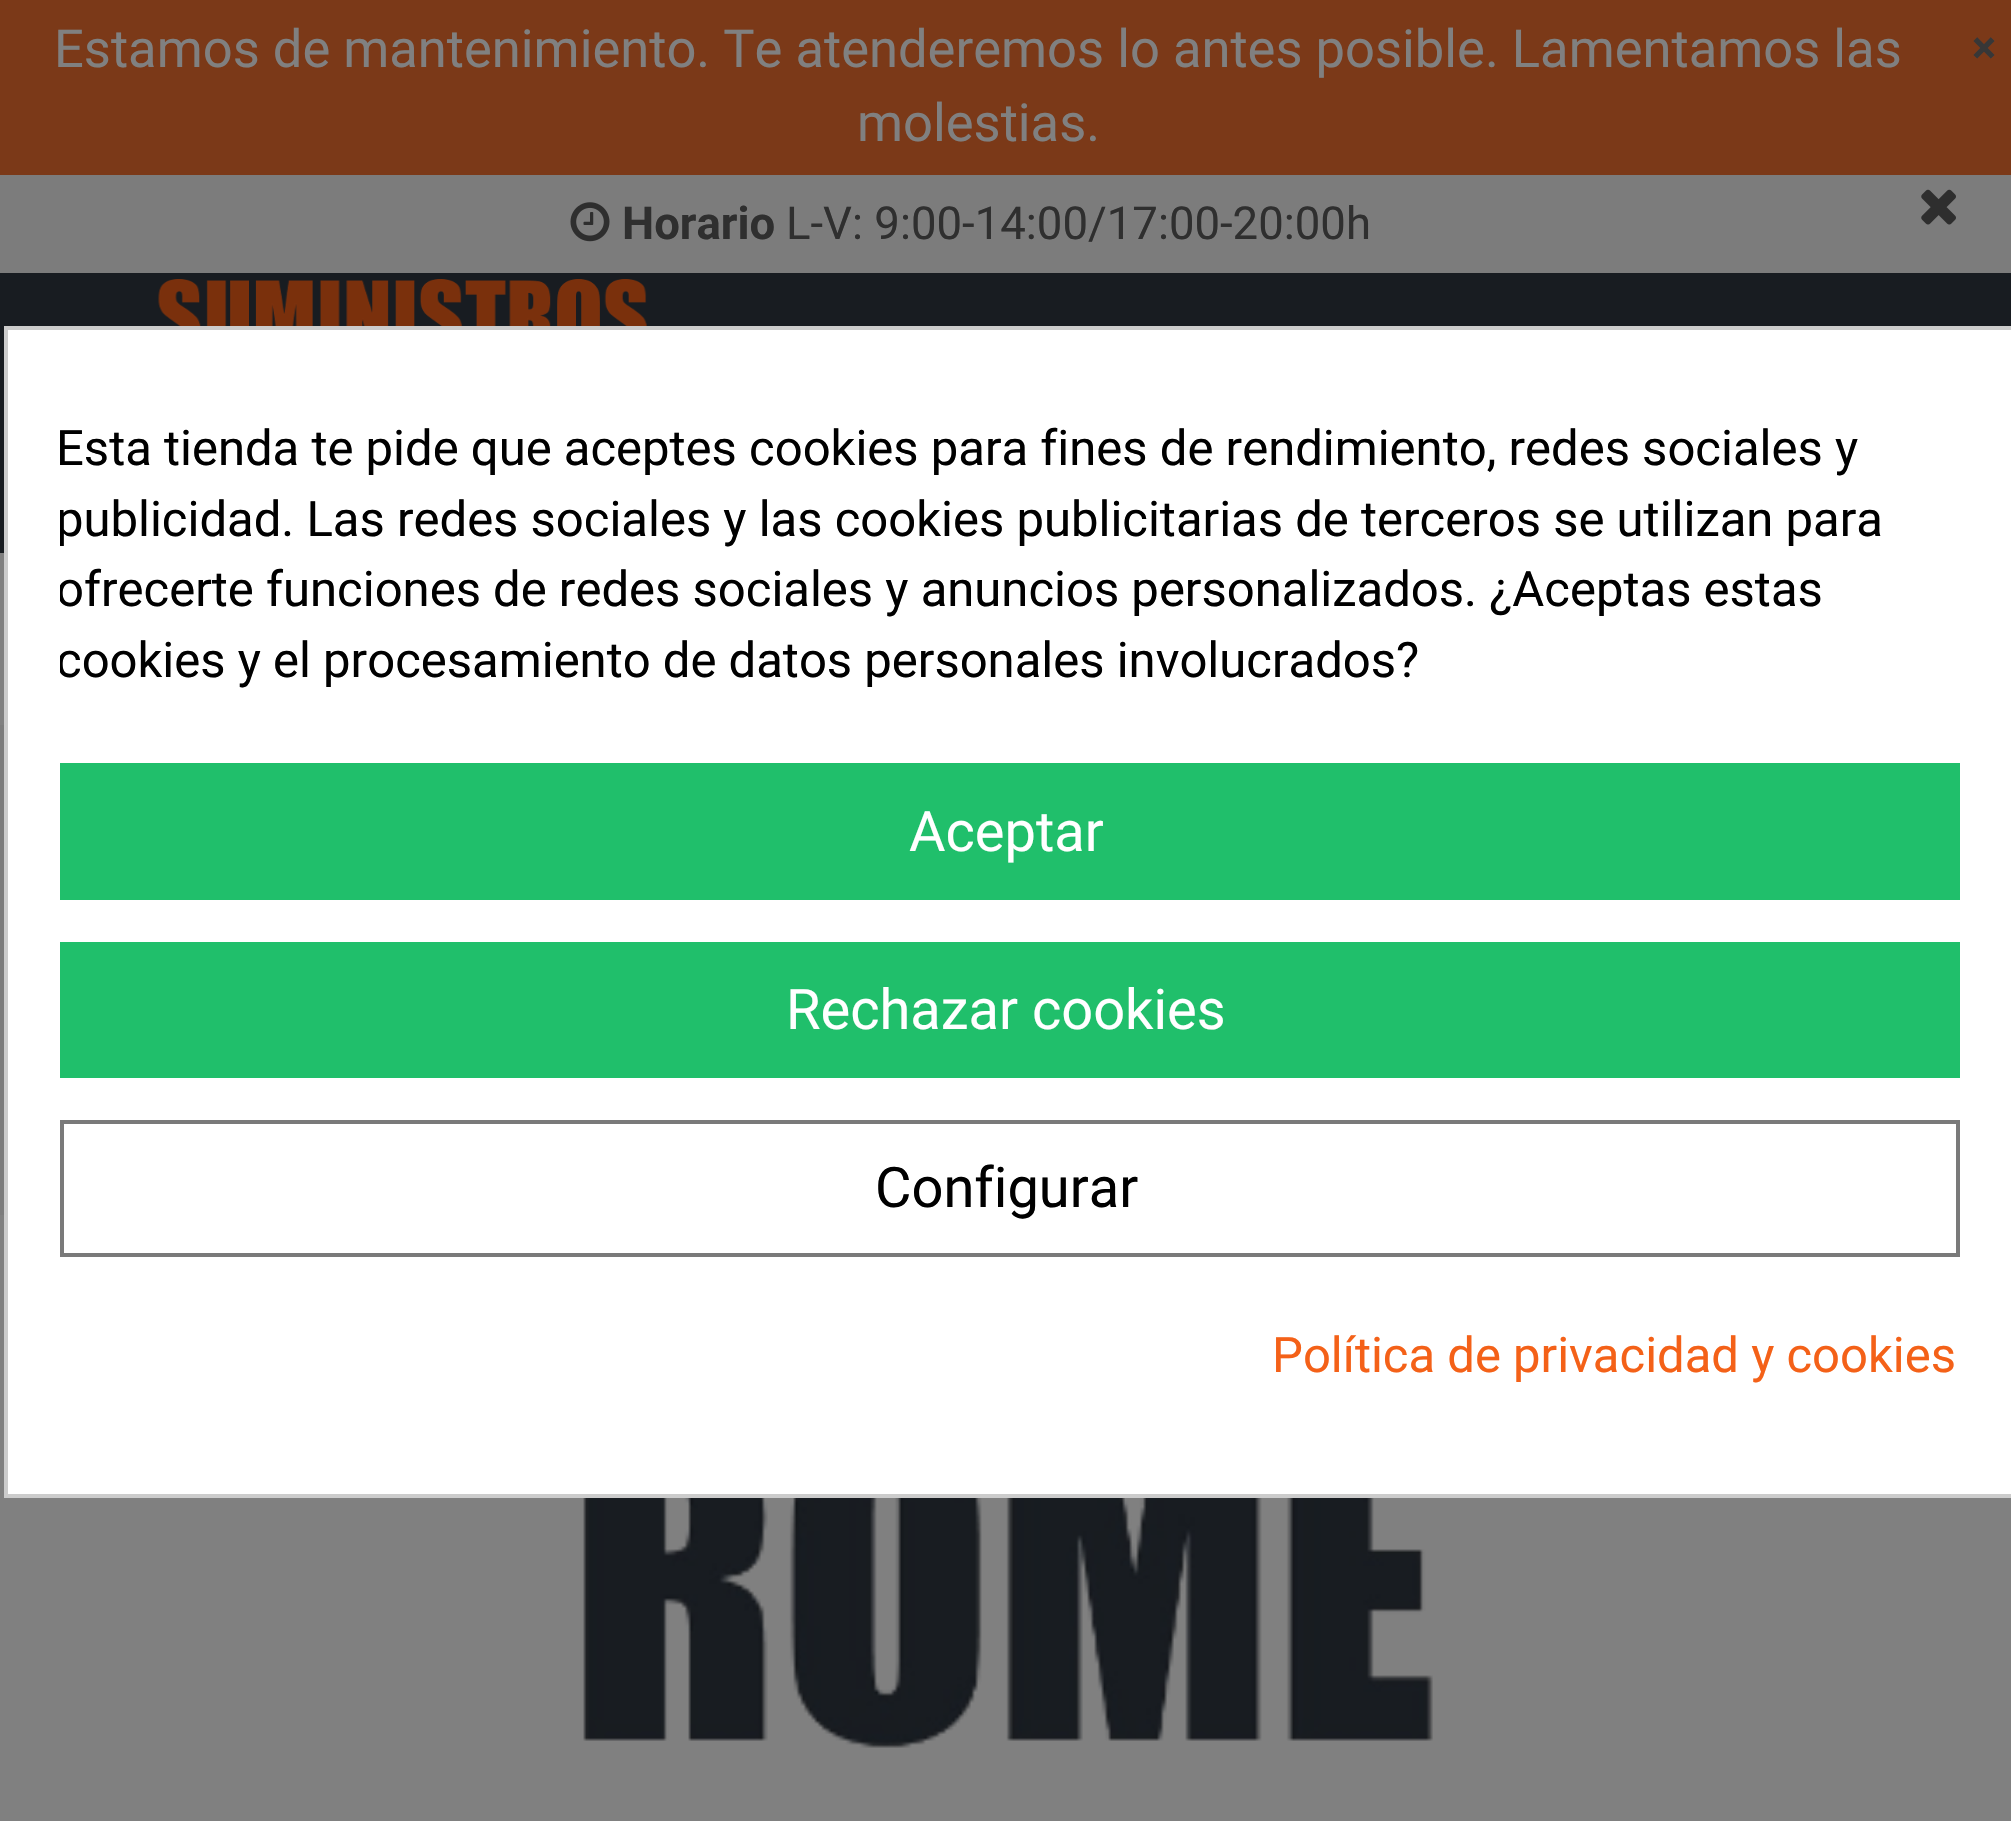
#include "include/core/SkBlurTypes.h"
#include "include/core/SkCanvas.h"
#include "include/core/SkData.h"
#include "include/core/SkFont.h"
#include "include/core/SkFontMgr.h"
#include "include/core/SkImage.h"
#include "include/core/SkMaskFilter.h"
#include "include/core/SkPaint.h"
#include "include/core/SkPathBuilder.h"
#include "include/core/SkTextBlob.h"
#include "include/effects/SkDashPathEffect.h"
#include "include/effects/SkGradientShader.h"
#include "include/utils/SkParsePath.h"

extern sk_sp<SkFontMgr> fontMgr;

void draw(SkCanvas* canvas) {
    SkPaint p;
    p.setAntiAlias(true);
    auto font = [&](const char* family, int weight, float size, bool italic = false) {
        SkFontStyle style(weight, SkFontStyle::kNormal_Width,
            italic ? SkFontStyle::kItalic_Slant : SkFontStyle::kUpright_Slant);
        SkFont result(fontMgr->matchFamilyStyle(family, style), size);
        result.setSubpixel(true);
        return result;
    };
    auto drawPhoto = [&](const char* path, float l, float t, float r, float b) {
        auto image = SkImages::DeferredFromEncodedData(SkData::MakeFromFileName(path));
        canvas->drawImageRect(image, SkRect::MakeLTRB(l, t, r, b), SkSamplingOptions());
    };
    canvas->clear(0xFF808080);
    p.setColor(0xFF7B3918);
    canvas->drawRect(SkRect::MakeLTRB(0, 0, 2011, 175), p);
    auto font1 = font("Roboto", 400, 52.5f);
    p.setColor(0xFF808080);
    canvas->drawString("Estamos de mantenimiento. Te atenderemos lo antes posible. Lamentamos las", 54, 67, font1, p);
    canvas->drawString("molestias.", 857, 141, font1, p);
    auto font2 = font("Roboto", 700, 45.5f);
    p.setColor(0xFF373737);
    canvas->drawString("×", 1972, 63, font2, p);
    p.setColor(0xFF181C21);
    canvas->drawRect(SkRect::MakeLTRB(0, 273, 2011, 553), p);
    p.setColor(0xFF7C7C7C);
    canvas->drawRect(SkRect::MakeLTRB(0, 175, 2011, 273), p);
    drawPhoto("media/1.png", 570, 202, 610, 242);
    p.setColor(0xFF2F2F2F);
    canvas->drawString("Horario", 622, 239, font2, p);
    auto font3 = font("Roboto", 400, 45.5f);
    canvas->drawString("L-V: 9:00-14:00/17:00-20:00h", 786, 239, font3, p);
    drawPhoto("media/2.png", 1921, 189, 1956, 225);
    drawPhoto("media/3.png", 158, 279, 647, 326);
    p.setColor(0xFF7C7C7C);
    canvas->drawRect(SkRect::MakeLTRB(0, 725, 4, 1215), p);
    drawPhoto("media/4.png", 583, 1498, 1433, 1748);
    p.setColor(0xFFFFFFFF);
    canvas->drawRect(SkRect::MakeLTRB(6, 328, 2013, 1496), p);
    p.setStyle(SkPaint::kStroke_Style);
    p.setStrokeWidth(4);
    p.setColor(0xFFCCCCCC);
    canvas->drawRect(SkRect::MakeLTRB(6, 328, 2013, 1496), p);
    auto font4 = font("Roboto", 400, 49);
    p.setStyle(SkPaint::kFill_Style);
    p.setColor(0xFF000000);
    canvas->drawString("Esta tienda te pide que aceptes cookies para fines de rendimiento, redes sociales y", 56, 465, font4, p);
    canvas->save();
    canvas->clipRect(SkRect::MakeLTRB(60, 413, 1960, 693));
    {
        const struct { const char* s; float x, y; } items[] = {
            {"publicidad. Las redes sociales y las cookies publicitarias de terceros se utilizan para", 56, 536},
            {"ofrecerte funciones de redes sociales y anuncios personalizados. ¿Aceptas estas", 56, 606},
            {"cookies y el procesamiento de datos personales involucrados?", 56, 677},
        };
        for (auto [s, x, y] : items) {
            canvas->drawString(s, x, y, font4, p);
        }
    }
    canvas->restore();
    p.setColor(0xFF20BF6B);
    canvas->drawRect(SkRect::MakeLTRB(60, 763, 1960, 900), p);
    auto font5 = font("Roboto", 400, 56);
    p.setColor(0xFFFFFFFF);
    canvas->drawString("Aceptar", 909, 851, font5, p);
    p.setColor(0xFF20BF6B);
    canvas->drawRect(SkRect::MakeLTRB(60, 942, 1960, 1078), p);
    p.setColor(0xFFFFFFFF);
    canvas->drawString("Rechazar cookies", 786, 1029, font5, p);
    p.setStyle(SkPaint::kStroke_Style);
    p.setColor(0xFF7A7A7A);
    canvas->drawRect(SkRect::MakeLTRB(62, 1122, 1958, 1255), p);
    p.setStyle(SkPaint::kFill_Style);
    p.setColor(0xFF000000);
    canvas->drawString("Configurar", 875, 1207, font5, p);
    p.setColor(0xFFF46118);
    canvas->drawString("Política de privacidad y cookies", 1272, 1372, font4, p);
}
